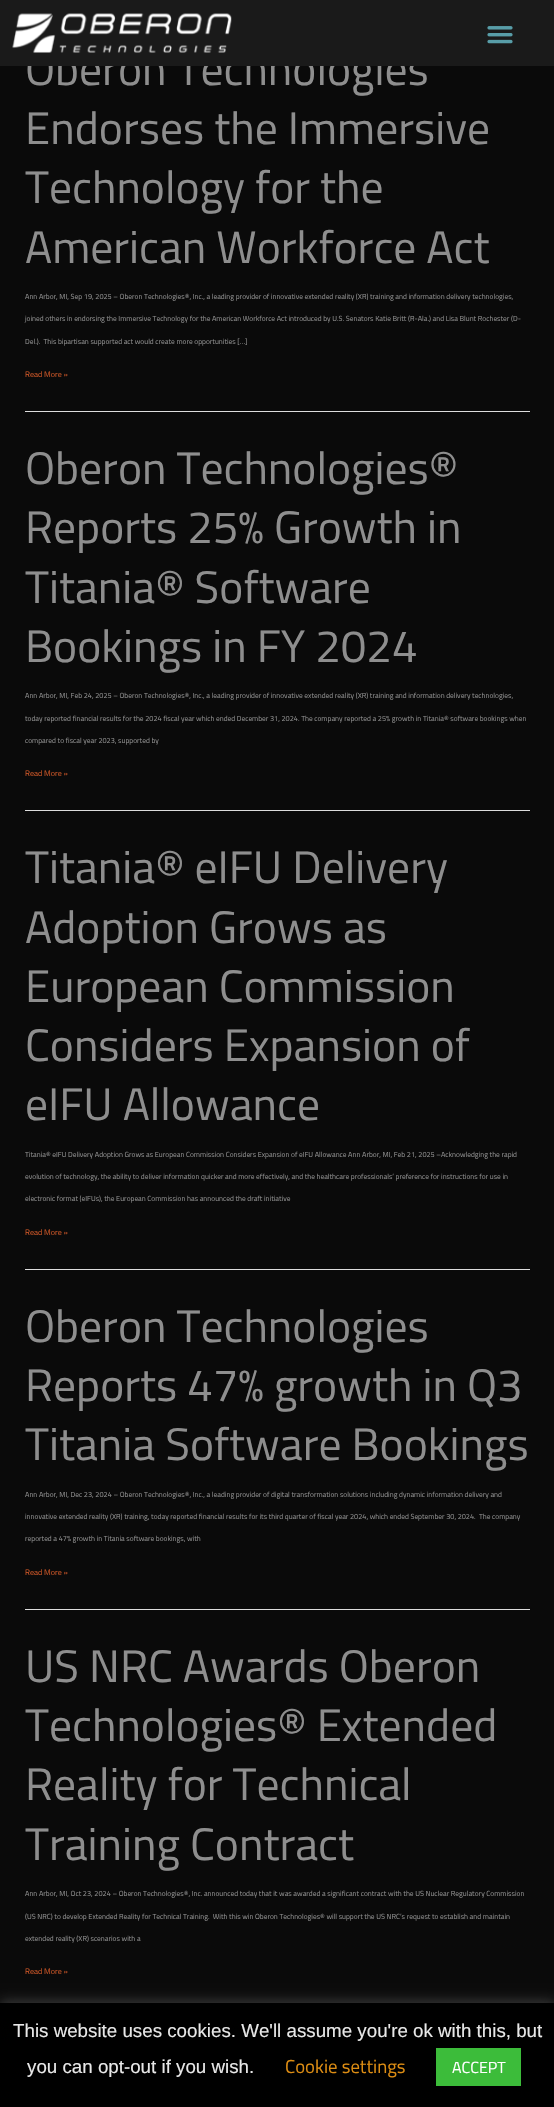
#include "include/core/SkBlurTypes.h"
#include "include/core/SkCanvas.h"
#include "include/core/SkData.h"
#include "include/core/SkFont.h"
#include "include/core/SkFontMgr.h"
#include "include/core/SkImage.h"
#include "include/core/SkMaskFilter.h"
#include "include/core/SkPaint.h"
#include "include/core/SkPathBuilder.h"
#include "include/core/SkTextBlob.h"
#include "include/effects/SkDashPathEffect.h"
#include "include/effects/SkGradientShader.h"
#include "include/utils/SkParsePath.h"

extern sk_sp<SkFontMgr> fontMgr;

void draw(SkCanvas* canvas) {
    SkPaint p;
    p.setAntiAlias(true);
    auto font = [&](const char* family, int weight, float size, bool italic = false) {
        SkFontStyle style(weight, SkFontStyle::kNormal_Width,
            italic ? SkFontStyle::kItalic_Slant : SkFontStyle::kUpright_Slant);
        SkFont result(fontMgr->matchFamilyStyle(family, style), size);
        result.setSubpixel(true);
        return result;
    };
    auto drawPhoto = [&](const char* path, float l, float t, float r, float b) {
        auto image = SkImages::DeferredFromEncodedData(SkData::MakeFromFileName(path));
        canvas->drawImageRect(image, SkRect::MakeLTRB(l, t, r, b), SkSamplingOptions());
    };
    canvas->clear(0xFF0A0A0A);
    auto font1 = font("Titillium Web", 400, 45.6f);
    p.setColor(0xFF8E8E8E);
    canvas->drawString("Oberon Technologies", 25, 85, font1, p);
    p.setColor(0xFF1A1A1A);
    canvas->drawRect(SkRect::MakeLTRB(0, 0, 554, 66), p);
    drawPhoto("media/1.png", 12, 13, 232, 53);
    drawPhoto("media/2.png", 487, 26, 513, 44);
    p.setColor(0xFFDDDDDD);
    canvas->drawRect(SkRect::MakeLTRB(25, 411, 530, 412), p);
    p.setColor(0xFF8E8E8E);
    {
        const struct { const char* s; float x, y; } items[] = {
            {"Endorses the Immersive", 25, 144},
            {"Technology for the", 25, 203},
            {"American Workforce Act", 25, 263},
        };
        for (auto [s, x, y] : items) {
            canvas->drawString(s, x, y, font1, p);
        }
    }
    auto font2 = font("Titillium Web", 400, 7.35f);
    {
        const struct { const char* s; float x, y; } items[] = {
            {"Ann Arbor, MI, Sep 19, 2025 – Oberon Technologies®, Inc., a leading provider of innovative extended reality (XR) training and information delivery technologies,", 25, 299},
            {"joined others in endorsing the Immersive Technology for the American Workforce Act introduced by U.S. Senators Katie Britt (R-Ala.) and Lisa Blunt Rochester (D-", 25, 321},
            {"Del.).  This bipartisan supported act would create more opportunities […]", 25, 344},
        };
        for (auto [s, x, y] : items) {
            canvas->drawString(s, x, y, font2, p);
        }
    }
    auto font3 = font("Titillium Web", 400, 8);
    p.setColor(0xFFD25827);
    canvas->drawString("Read More »", 25, 377, font3, p);
    p.setColor(0xFFDDDDDD);
    canvas->drawRect(SkRect::MakeLTRB(25, 810, 530, 811), p);
    p.setColor(0xFF8E8E8E);
    {
        const struct { const char* s; float x, y; } items[] = {
            {"Oberon Technologies®", 25, 484},
            {"Reports 25% Growth in", 25, 543},
            {"Titania® Software", 25, 603},
            {"Bookings in FY 2024", 25, 662},
        };
        for (auto [s, x, y] : items) {
            canvas->drawString(s, x, y, font1, p);
        }
    }
    {
        const struct { const char* s; float x, y; } items[] = {
            {"Ann Arbor, MI, Feb 24, 2025 – Oberon Technologies®, Inc., a leading provider of innovative extended reality (XR) training and information delivery technologies,", 25, 698},
            {"today reported financial results for the 2024 fiscal year which ended December 31, 2024. The company reported a 25% growth in Titania® software bookings when", 25, 721},
            {"compared to fiscal year 2023, supported by", 25, 743},
        };
        for (auto [s, x, y] : items) {
            canvas->drawString(s, x, y, font2, p);
        }
    }
    p.setColor(0xFFD25827);
    canvas->drawString("Read More »", 25, 776, font3, p);
    p.setColor(0xFFDDDDDD);
    canvas->drawRect(SkRect::MakeLTRB(25, 1269, 530, 1270), p);
    p.setColor(0xFF8E8E8E);
    {
        const struct { const char* s; float x, y; } items[] = {
            {"Titania® eIFU Delivery", 25, 883},
            {"Adoption Grows as", 25, 943},
            {"European Commission", 25, 1002},
            {"Considers Expansion of", 25, 1061},
            {"eIFU Allowance", 25, 1120},
        };
        for (auto [s, x, y] : items) {
            canvas->drawString(s, x, y, font1, p);
        }
    }
    {
        const struct { const char* s; float x, y; } items[] = {
            {"Titania® eIFU Delivery Adoption Grows as European Commission Considers Expansion of eIFU Allowance Ann Arbor, MI, Feb 21, 2025 –Acknowledging the rapid", 25, 1157},
            {"evolution of technology, the ability to deliver information quicker and more effectively, and the healthcare professionals’ preference for instructions for use in", 25, 1179},
            {"electronic format (eIFUs), the European Commission has announced the draft initiative", 25, 1201},
        };
        for (auto [s, x, y] : items) {
            canvas->drawString(s, x, y, font2, p);
        }
    }
    p.setColor(0xFFD25827);
    canvas->drawString("Read More »", 25, 1235, font3, p);
    p.setColor(0xFFDDDDDD);
    canvas->drawRect(SkRect::MakeLTRB(25, 1609, 530, 1610), p);
    p.setColor(0xFF8E8E8E);
    {
        const struct { const char* s; float x, y; } items[] = {
            {"Oberon Technologies", 25, 1342},
            {"Reports 47% growth in Q3", 25, 1401},
            {"Titania Software Bookings", 25, 1460},
        };
        for (auto [s, x, y] : items) {
            canvas->drawString(s, x, y, font1, p);
        }
    }
    {
        const struct { const char* s; float x, y; } items[] = {
            {"Ann Arbor, MI, Dec 23, 2024 – Oberon Technologies®, Inc., a leading provider of digital transformation solutions including dynamic information delivery and", 25, 1497},
            {"innovative extended reality (XR) training, today reported financial results for its third quarter of fiscal year 2024, which ended September 30, 2024.  The company", 25, 1519},
            {"reported a 47% growth in Titania software bookings, with", 25, 1541},
        };
        for (auto [s, x, y] : items) {
            canvas->drawString(s, x, y, font2, p);
        }
    }
    p.setColor(0xFFD25827);
    canvas->drawString("Read More »", 25, 1575, font3, p);
    p.setColor(0xFF8E8E8E);
    {
        const struct { const char* s; float x, y; } items[] = {
            {"US NRC Awards Oberon", 25, 1682},
            {"Technologies® Extended", 25, 1741},
            {"Reality for Technical", 25, 1800},
            {"Training Contract", 25, 1860},
        };
        for (auto [s, x, y] : items) {
            canvas->drawString(s, x, y, font1, p);
        }
    }
    {
        const struct { const char* s; float x, y; } items[] = {
            {"Ann Arbor, MI, Oct 23, 2024 – Oberon Technologies®, Inc. announced today that it was awarded a significant contract with the US Nuclear Regulatory Commission", 25, 1896},
            {"(US NRC) to develop Extended Reality for Technical Training.  With this win Oberon Technologies® will support the US NRC’s request to establish and maintain", 25, 1919},
            {"extended reality (XR) scenarios with a", 25, 1941},
        };
        for (auto [s, x, y] : items) {
            canvas->drawString(s, x, y, font2, p);
        }
    }
    p.setColor(0xFFD25827);
    canvas->drawString("Read More »", 25, 1974, font3, p);
    p.setColor(0x4DACABAB);
    p.setMaskFilter(SkMaskFilter::MakeBlur(kNormal_SkBlurStyle, 6));
    canvas->drawRect(SkRect::MakeLTRB(0, 2001, 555, 2106), p);
    p.setMaskFilter(nullptr);
    p.setColor(0xFF000000);
    canvas->drawRect(SkRect::MakeLTRB(0, 2003, 554, 2107), p);
    auto font4 = font("Liberation Sans", 400, 18.75f);
    p.setColor(0xFFE8E8E8);
    canvas->drawString("This website uses cookies. We'll assume you're ok with this, but", 13, 2037, font4, p);
    canvas->drawString("you can opt-out if you wish.", 27, 2073, font4, p);
    auto font5 = font("Titillium Web", 400, 18.75f);
    p.setColor(0xFFDD8D13);
    canvas->drawString("Cookie settings", 285, 2073, font5, p);
    p.setColor(0xFF3CBC3A);
    canvas->drawRect(SkRect::MakeLTRB(436, 2048, 521, 2086), p);
    auto font6 = font("Titillium Web", 400, 16);
    p.setColor(0xFFFFFFFF);
    canvas->drawString("ACCEPT", 452, 2073, font6, p);
}
